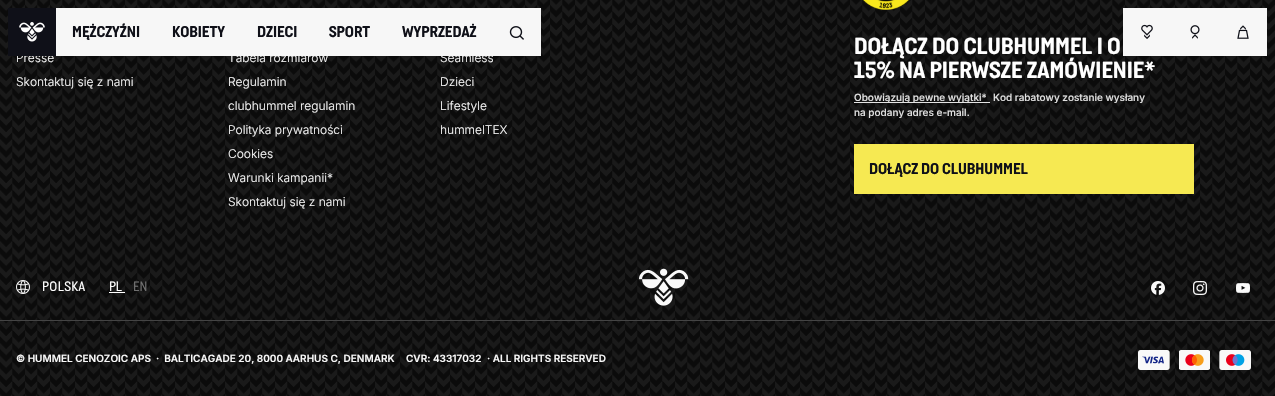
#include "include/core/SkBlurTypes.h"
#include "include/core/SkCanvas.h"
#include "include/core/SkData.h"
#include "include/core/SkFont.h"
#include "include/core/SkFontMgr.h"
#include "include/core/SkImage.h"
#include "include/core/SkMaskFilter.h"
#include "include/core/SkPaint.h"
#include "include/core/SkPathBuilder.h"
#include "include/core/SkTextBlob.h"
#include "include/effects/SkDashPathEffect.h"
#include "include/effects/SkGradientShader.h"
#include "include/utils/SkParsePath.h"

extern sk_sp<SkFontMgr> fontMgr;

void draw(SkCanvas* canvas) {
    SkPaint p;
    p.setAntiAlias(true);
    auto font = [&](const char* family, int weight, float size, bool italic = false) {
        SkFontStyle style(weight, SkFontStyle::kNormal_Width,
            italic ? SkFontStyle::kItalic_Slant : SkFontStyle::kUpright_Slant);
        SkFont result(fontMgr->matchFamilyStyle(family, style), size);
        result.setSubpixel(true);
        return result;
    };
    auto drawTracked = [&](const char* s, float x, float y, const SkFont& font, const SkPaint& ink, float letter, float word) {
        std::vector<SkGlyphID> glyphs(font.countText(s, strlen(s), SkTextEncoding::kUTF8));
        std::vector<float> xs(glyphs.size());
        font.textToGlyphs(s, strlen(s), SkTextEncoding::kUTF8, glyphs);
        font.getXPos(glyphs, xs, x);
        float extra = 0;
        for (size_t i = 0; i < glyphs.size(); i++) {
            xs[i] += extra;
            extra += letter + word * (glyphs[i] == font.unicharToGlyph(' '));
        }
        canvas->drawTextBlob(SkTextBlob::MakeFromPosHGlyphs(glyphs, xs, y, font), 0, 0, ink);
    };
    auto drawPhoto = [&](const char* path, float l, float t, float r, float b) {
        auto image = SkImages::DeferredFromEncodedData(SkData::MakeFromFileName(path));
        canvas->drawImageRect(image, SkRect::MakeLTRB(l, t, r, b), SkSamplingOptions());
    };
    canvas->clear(0xFF1A1A1A);
    drawPhoto("media/6.png", 0, 0, 1275, 396);
    auto font1 = font("Inter", 300, 12);
    p.setColor(0xFFF9F9F9);
    canvas->drawString("Presse", 16, 62, font1, p);
    p.setColor(0xFF0F1018);
    canvas->drawRect(SkRect::MakeLTRB(8, 8, 56, 56), p);
    drawPhoto("media/1.png", 19, 22, 45, 42);
    p.setColor(0xFFF9F9F9);
    canvas->drawString("Tabela rozmiarów", 228, 62, font1, p);
    canvas->drawString("Seamless", 440, 62, font1, p);
    p.setColor(0xFFF7F7F7);
    canvas->drawRect(SkRect::MakeLTRB(56, 8, 541, 56), p);
    auto font2 = font("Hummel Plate", 700, 16);
    p.setColor(0xFF0F1018);
    {
        const struct { const char* s; float x, y; } items[] = {
            {"MĘŻCZYŹNI", 72, 37},
            {"KOBIETY", 172, 37},
            {"DZIECI", 257, 37},
            {"SPORT", 329, 37},
            {"WYPRZEDAŻ", 402, 37},
        };
        for (auto [s, x, y] : items) {
            canvas->drawString(s, x, y, font2, p);
        }
    }
    drawPhoto("media/2.png", 509, 26, 524, 40);
    p.setColor(0xFFF7F7F7);
    canvas->drawRect(SkRect::MakeLTRB(1123, 8, 1267, 56), p);
    drawPhoto("media/3.png", 1141, 24, 1153, 39);
    drawPhoto("media/4.png", 1190, 25, 1200, 39);
    drawPhoto("media/5.png", 1237, 25, 1249, 39);
    p.setColor(0xFFF9F9F9);
    {
        const struct { const char* s; float x, y; } items[] = {
            {"Skontaktuj się z nami", 16, 86},
            {"Regulamin", 228, 86},
            {"clubhummel regulamin", 228, 110},
            {"Polityka prywatności", 228, 134},
            {"Cookies", 228, 158},
            {"Warunki kampanii*", 228, 182},
            {"Skontaktuj się z nami", 228, 206},
            {"Dzieci", 440, 86},
            {"Lifestyle", 440, 110},
            {"hummelTEX", 440, 134},
        };
        for (auto [s, x, y] : items) {
            canvas->drawString(s, x, y, font1, p);
        }
    }
    drawPhoto("media/7.png", 862, 0, 910, 10);
    auto font3 = font("Hummel Plate", 700, 24);
    p.setColor(0xFFFFFFFF);
    canvas->drawString("DOŁĄCZ DO CLUBHUMMEL I O", 854, 54, font3, p);
    canvas->drawString("15% NA PIERWSZE ZAMÓWIENIE*", 854, 78, font3, p);
    p.setColor(0xFFE3E3E3);
    canvas->drawRect(SkRect::MakeLTRB(854, 102, 990, 103), p);
    auto font4 = font("Inter", 500, 10);
    {
        const struct { const char* s; float x, y; } items[] = {
            {"Obowiązują pewne wyjątki*", 854, 101},
            {"Kod rabatowy zostanie wysłany", 993, 101},
            {"na podany adres e-mail.", 854, 116},
        };
        for (auto [s, x, y] : items) {
            canvas->drawString(s, x, y, font4, p);
        }
    }
    p.setColor(0xFFF6E952);
    canvas->drawRect(SkRect::MakeLTRB(854, 144, 1194, 194), p);
    p.setColor(0xFF0F1018);
    canvas->drawString("DOŁĄCZ DO CLUBHUMMEL", 869, 174, font2, p);
    drawPhoto("media/8.png", 16, 280, 30, 294);
    auto font5 = font("Hummel Plate", 400, 14);
    p.setColor(0xFFFFFFFF);
    drawTracked("POLSKA", 42, 291, font5, p, 0.5f, 0);
    canvas->drawString("PL", 109, 291, font5, p);
    canvas->drawRect(SkRect::MakeLTRB(109, 292, 125, 293), p);
    p.setColor(0xFF707070);
    canvas->drawString("EN", 133, 291, font5, p);
    drawPhoto("media/9.png", 639, 268, 689, 306);
    drawPhoto("media/10.png", 1151, 281, 1165, 295);
    drawPhoto("media/11.png", 1193, 281, 1207, 295);
    drawPhoto("media/12.png", 1236, 283, 1250, 293);
    p.setColor(0xFF444444);
    canvas->drawRect(SkRect::MakeLTRB(0, 320, 1275, 321), p);
    auto font6 = font("Inter", 600, 10);
    p.setColor(0xFFF9F9F9);
    {
        const struct { const char* s; float x, y; } items[] = {
            {"© HUMMEL CENOZOIC APS  ·  BALTICAGADE 20, 8000 AARHUS C, DENMARK", 16, 362},
            {"CVR: 43317032", 406, 362},
            {"· ALL RIGHTS RESERVED", 487, 362},
        };
        for (auto [s, x, y] : items) {
            canvas->drawString(s, x, y, font6, p);
        }
    }
    drawPhoto("media/13.png", 1138, 350, 1170, 370);
    drawPhoto("media/14.png", 1179, 350, 1210, 370);
    drawPhoto("media/15.png", 1219, 350, 1251, 370);
}
